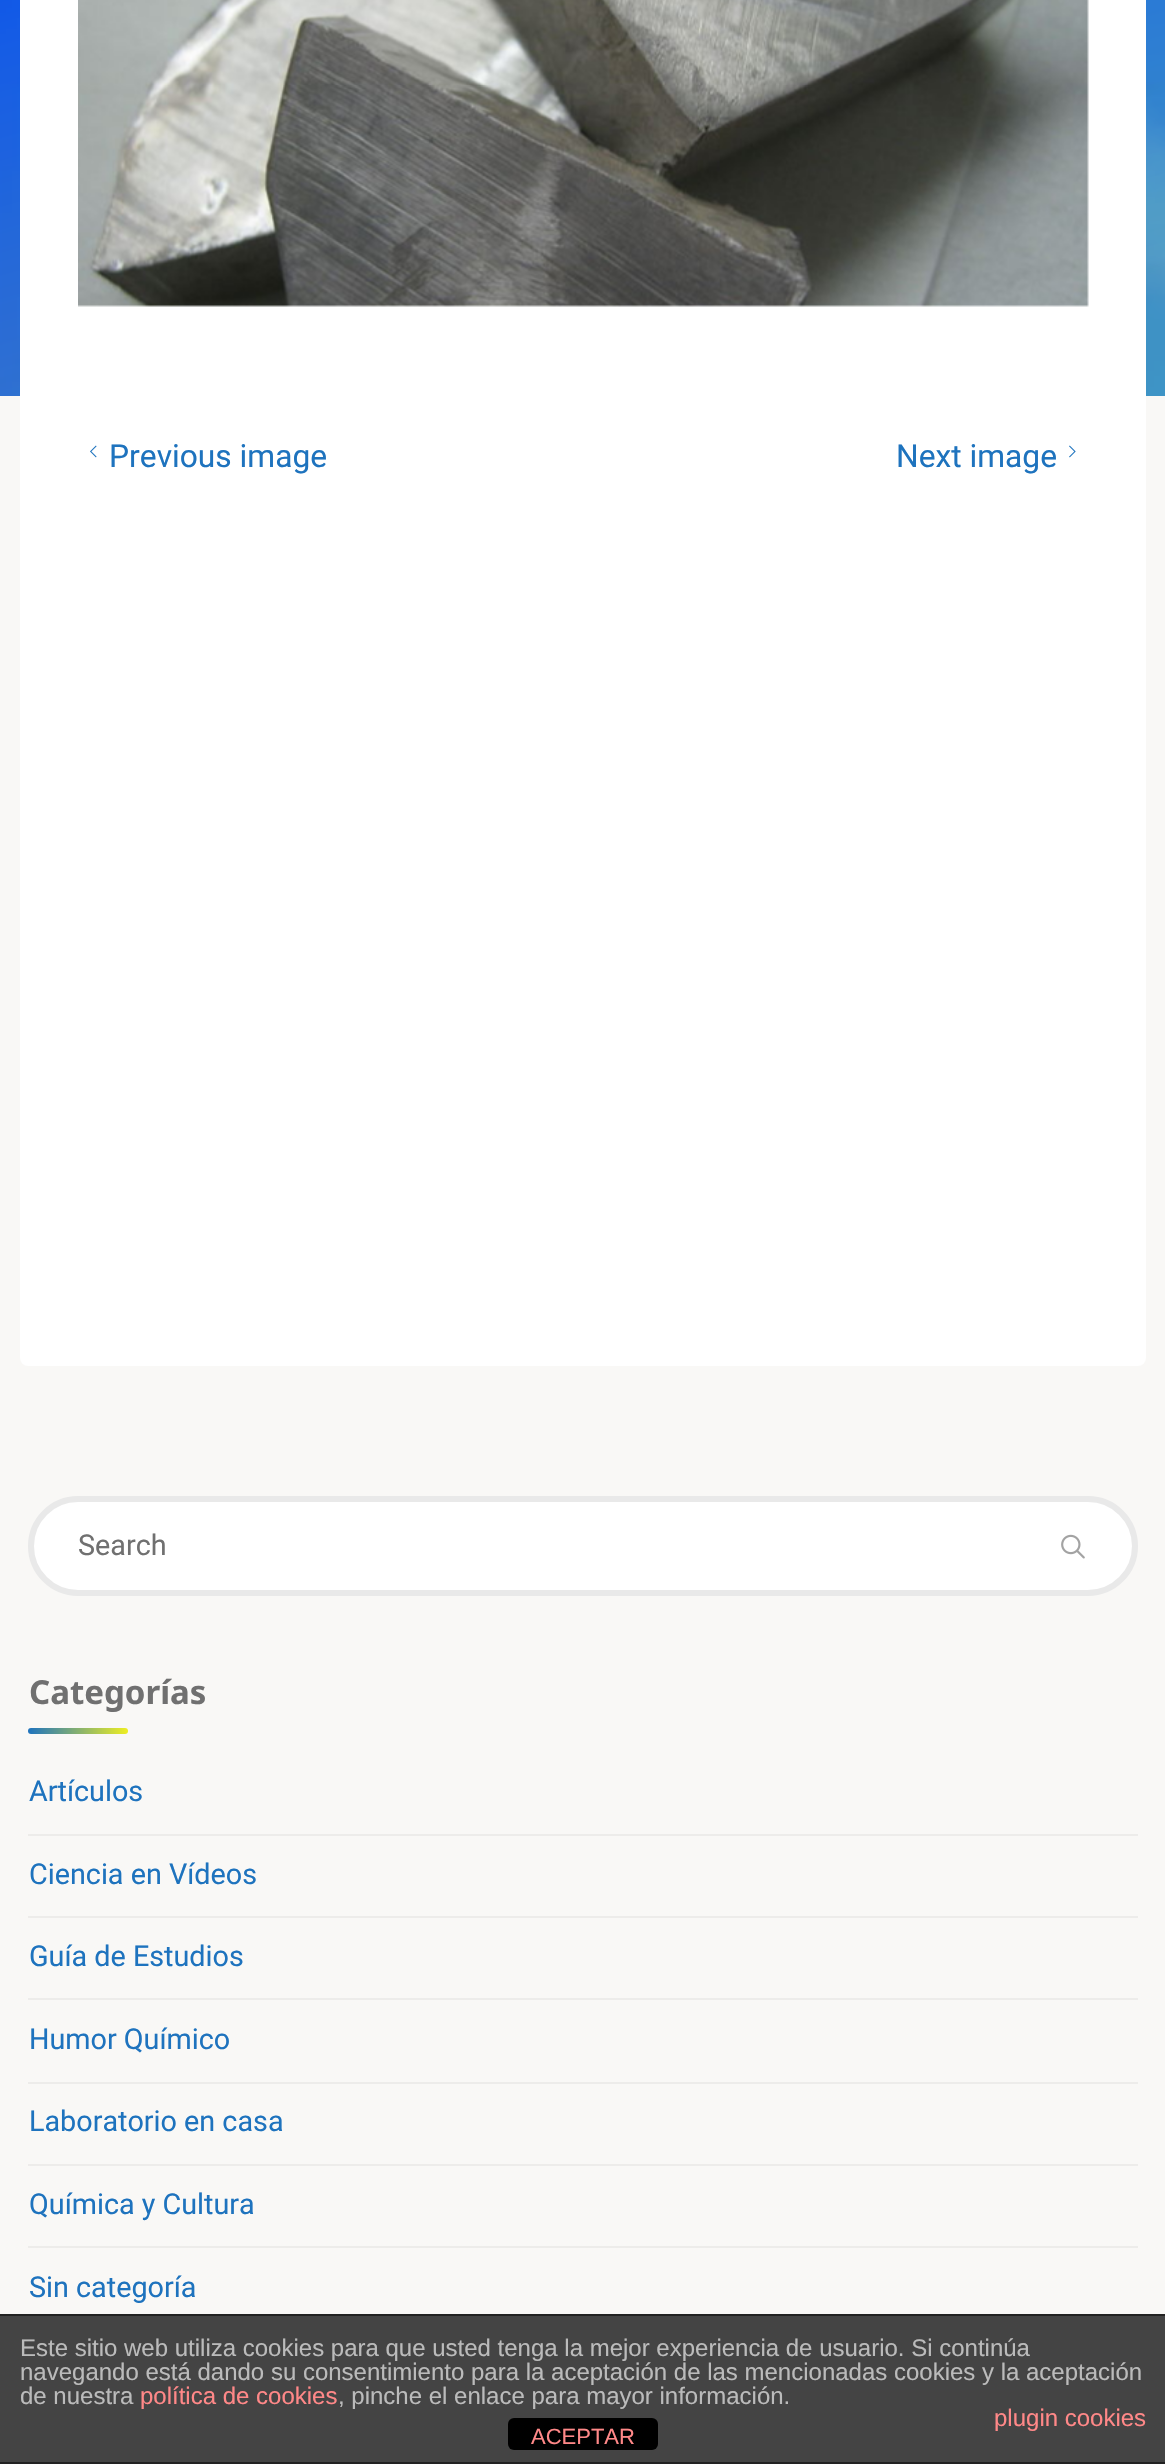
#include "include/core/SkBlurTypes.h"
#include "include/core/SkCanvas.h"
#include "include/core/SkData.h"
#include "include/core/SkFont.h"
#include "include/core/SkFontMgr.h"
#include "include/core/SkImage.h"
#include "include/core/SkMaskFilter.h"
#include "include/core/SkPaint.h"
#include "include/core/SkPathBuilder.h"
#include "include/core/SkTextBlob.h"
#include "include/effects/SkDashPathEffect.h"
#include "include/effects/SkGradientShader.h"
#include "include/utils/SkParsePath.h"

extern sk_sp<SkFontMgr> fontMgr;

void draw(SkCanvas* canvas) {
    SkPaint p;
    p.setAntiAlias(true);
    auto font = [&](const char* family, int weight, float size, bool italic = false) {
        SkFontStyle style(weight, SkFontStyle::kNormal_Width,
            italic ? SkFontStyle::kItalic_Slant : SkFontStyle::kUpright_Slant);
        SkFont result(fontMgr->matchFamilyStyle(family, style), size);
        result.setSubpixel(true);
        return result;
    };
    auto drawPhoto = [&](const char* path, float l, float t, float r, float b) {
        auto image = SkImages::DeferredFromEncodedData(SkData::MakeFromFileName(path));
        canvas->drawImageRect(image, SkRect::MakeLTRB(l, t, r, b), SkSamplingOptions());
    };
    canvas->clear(0xFFF9F8F6);
    drawPhoto("media/1.png", 0, 0, 1165, 396);
    p.setColor(0xFFFFFFFF);
    canvas->drawRoundRect(SkRect::MakeLTRB(20, -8, 1146, 1366), 8, 8, p);
    drawPhoto("media/2.png", 78, 0, 1089, 307);
    drawPhoto("media/3.png", 90, 445, 97, 458);
    auto font1 = font("Roboto", 400, 31.75f);
    p.setColor(0xFF1E73BE);
    canvas->drawString("Previous image", 109, 467, font1, p);
    canvas->drawString("Next image", 896, 467, font1, p);
    drawPhoto("media/4.png", 1069, 445, 1076, 458);
    p.setColor(0xFFFFFFFF);
    canvas->drawRoundRect(SkRect::MakeLTRB(31, 1499, 1135, 1593), 47, 47, p);
    p.setStyle(SkPaint::kStroke_Style);
    p.setStrokeWidth(6);
    p.setColor(0xFFE9E9E9);
    canvas->drawRoundRect(SkRect::MakeLTRB(31, 1499, 1135, 1593), 47, 47, p);
    auto font2 = font("Roboto", 400, 28.75f);
    p.setStyle(SkPaint::kFill_Style);
    p.setColor(0xFF707070);
    canvas->drawString("Search", 78, 1555, font2, p);
    drawPhoto("media/5.png", 1061, 1534, 1085, 1559);
    auto font3 = font("Noto Sans", 700, 33);
    canvas->drawString("Categorías", 29, 1704, font3, p);
    {
        const SkColor colors[] = {0xFF1E73BE, 0xFFEEEE22};
        const float stops[] = {0, 1};
        const SkPoint ends[] = {{28, 1731}, {128, 1731}};
        p.setShader(SkGradientShader::MakeLinear(ends, colors, stops, 2, SkTileMode::kClamp));
        p.setAlpha(255);
    }
    canvas->drawRoundRect(SkRect::MakeLTRB(28, 1728, 128, 1734), 3, 3, p);
    p.setShader(nullptr);
    p.setColor(0xFFEDECEA);
    canvas->drawRect(SkRect::MakeLTRB(28, 1834, 1138, 1836), p);
    p.setColor(0xFF1E73BE);
    canvas->drawString("Artículos", 29, 1801, font2, p);
    p.setColor(0xFFEDECEA);
    canvas->drawRect(SkRect::MakeLTRB(28, 1916, 1138, 1918), p);
    p.setColor(0xFF1E73BE);
    canvas->drawString("Ciencia en Vídeos", 29, 1884, font2, p);
    p.setColor(0xFFEDECEA);
    canvas->drawRect(SkRect::MakeLTRB(28, 1998, 1138, 2000), p);
    p.setColor(0xFF1E73BE);
    canvas->drawString("Guía de Estudios", 29, 1966, font2, p);
    p.setColor(0xFFEDECEA);
    canvas->drawRect(SkRect::MakeLTRB(28, 2082, 1138, 2084), p);
    p.setColor(0xFF1E73BE);
    canvas->drawString("Humor Químico", 29, 2049, font2, p);
    p.setColor(0xFFEDECEA);
    canvas->drawRect(SkRect::MakeLTRB(28, 2164, 1138, 2166), p);
    p.setColor(0xFF1E73BE);
    canvas->drawString("Laboratorio en casa", 29, 2131, font2, p);
    p.setColor(0xFFEDECEA);
    canvas->drawRect(SkRect::MakeLTRB(28, 2246, 1138, 2248), p);
    p.setColor(0xFF1E73BE);
    canvas->drawString("Química y Cultura", 29, 2214, font2, p);
    canvas->drawString("Sin categoría", 29, 2297, font2, p);
    {
        const struct { float l, t, r, b; SkColor color; } items[] = {
            {0, 2316, 1165, 2462, 0xFF444444},
            {0, 2314, 1165, 2316, 0xFF222222},
            {0, 2462, 1165, 2464, 0xFF222222},
        };
        for (auto [l, t, r, b, color] : items) {
            p.setColor(color);
            canvas->drawRect(SkRect::MakeLTRB(l, t, r, b), p);
        }
    }
    auto font4 = font("Liberation Sans", 400, 24);
    p.setColor(0xFFBBBBBB);
    {
        const struct { const char* s; float x, y; } items[] = {
            {"Este sitio web utiliza cookies para que usted tenga la mejor experiencia de usuario. Si continúa", 20, 2356},
            {"navegando está dando su consentimiento para la aceptación de las mencionadas cookies y la aceptación", 20, 2380},
            {"de nuestra", 20, 2404},
        };
        for (auto [s, x, y] : items) {
            canvas->drawString(s, x, y, font4, p);
        }
    }
    p.setColor(0xFFFF8888);
    canvas->drawString("política de cookies", 140, 2404, font4, p);
    p.setColor(0xFFBBBBBB);
    canvas->drawString(", pinche el enlace para mayor información.", 338, 2404, font4, p);
    p.setColor(0xFFFF8888);
    canvas->drawString("plugin cookies", 994, 2426, font4, p);
    p.setColor(0xFF000000);
    canvas->drawRoundRect(SkRect::MakeLTRB(508, 2418, 658, 2450), 6, 6, p);
    auto font5 = font("Liberation Sans", 400, 22);
    p.setColor(0xFFFF8888);
    canvas->drawString("ACEPTAR", 531, 2444, font5, p);
}
